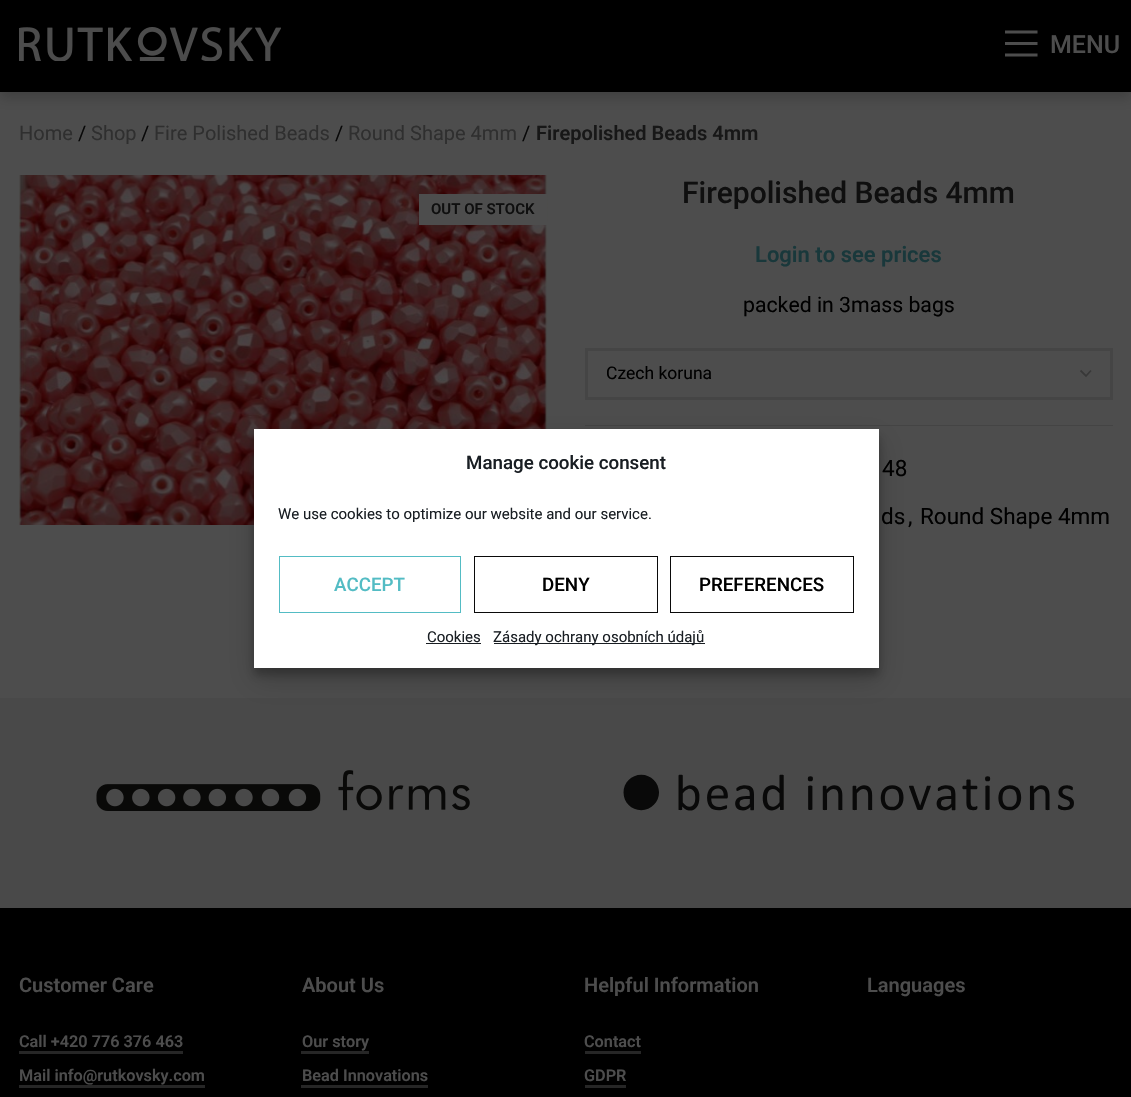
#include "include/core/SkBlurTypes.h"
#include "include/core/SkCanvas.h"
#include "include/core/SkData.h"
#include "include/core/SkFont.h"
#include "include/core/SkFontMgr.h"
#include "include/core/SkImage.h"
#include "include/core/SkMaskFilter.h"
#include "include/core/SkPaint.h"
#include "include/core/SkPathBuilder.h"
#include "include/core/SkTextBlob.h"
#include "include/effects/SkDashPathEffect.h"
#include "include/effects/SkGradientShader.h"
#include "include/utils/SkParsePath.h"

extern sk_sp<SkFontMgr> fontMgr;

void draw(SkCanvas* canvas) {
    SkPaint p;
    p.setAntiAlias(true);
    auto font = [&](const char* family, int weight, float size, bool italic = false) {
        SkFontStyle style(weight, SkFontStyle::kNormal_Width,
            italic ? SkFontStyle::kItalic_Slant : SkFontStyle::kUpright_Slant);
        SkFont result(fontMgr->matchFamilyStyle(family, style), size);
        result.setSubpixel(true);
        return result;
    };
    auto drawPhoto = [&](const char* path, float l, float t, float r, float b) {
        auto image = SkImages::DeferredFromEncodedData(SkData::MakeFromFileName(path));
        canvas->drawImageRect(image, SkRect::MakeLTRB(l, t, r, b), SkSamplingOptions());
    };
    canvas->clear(0xFF4D4D4D);
    p.setColor(0x2E000000);
    p.setMaskFilter(SkMaskFilter::MakeBlur(kNormal_SkBlurStyle, 6));
    canvas->drawRect(SkRect::MakeLTRB(0, 6, 1131, 98), p);
    p.setMaskFilter(nullptr);
    p.setColor(0xFF000000);
    canvas->drawRect(SkRect::MakeLTRB(0, 0, 1131, 92), p);
    drawPhoto("media/1.png", 19, 27, 281, 61);
    p.setColor(0xFF4D4D4D);
    canvas->drawPath(SkPathBuilder().moveTo(1005, 33.5f).lineTo(1037.5f, 33.5f).lineTo(1037.5f, 30.5f).lineTo(1005, 30.5f).close().moveTo(1005, 45).lineTo(1037.5f, 45).lineTo(1037.5f, 42).lineTo(1005, 42).close().moveTo(1005, 56.5f).lineTo(1037.5f, 56.5f).lineTo(1037.5f, 53.5f).lineTo(1005, 53.5f).close().detach(), p);
    auto font1 = font("Roboto", 500, 25);
    canvas->drawString("MENU", 1050, 53, font1, p);
    auto font2 = font("Roboto", 400, 20);
    p.setColor(0xFF2F2F2F);
    canvas->drawString("Home", 19, 140, font2, p);
    p.setColor(0xFF080808);
    canvas->drawString("/", 78, 140, font2, p);
    p.setColor(0xFF2F2F2F);
    canvas->drawString("Shop", 91, 140, font2, p);
    p.setColor(0xFF080808);
    canvas->drawString("/", 141, 140, font2, p);
    p.setColor(0xFF2F2F2F);
    canvas->drawString("Fire Polished Beads", 154, 140, font2, p);
    p.setColor(0xFF080808);
    canvas->drawString("/", 335, 140, font2, p);
    p.setColor(0xFF2F2F2F);
    canvas->drawString("Round Shape 4mm", 348, 140, font2, p);
    p.setColor(0xFF080808);
    canvas->drawString("/", 522, 140, font2, p);
    auto font3 = font("Roboto", 600, 20);
    p.setColor(0xFF171717);
    canvas->drawString("Firepolished Beads 4mm", 536, 140, font3, p);
    drawPhoto("media/2.png", 19, 175, 548, 525);
    p.setColor(0xFF4D4D4D);
    canvas->drawRect(SkRect::MakeLTRB(419, 194, 547, 225), p);
    auto font4 = font("Roboto", 600, 15);
    p.setColor(0xFF0F0F0F);
    canvas->drawString("OUT OF STOCK", 431, 214, font4, p);
    auto font5 = font("Roboto", 500, 30);
    canvas->drawString("Firepolished Beads 4mm", 682, 203, font5, p);
    auto font6 = font("Roboto", 600, 22);
    p.setColor(0xFF19383B);
    canvas->drawString("Login to see prices", 755, 262, font6, p);
    auto font7 = font("Roboto", 400, 21.25f);
    p.setColor(0xFF000000);
    canvas->drawString("packed in 3mass bags", 743, 312, font7, p);
    p.setStyle(SkPaint::kStroke_Style);
    p.setStrokeWidth(1.8f);
    p.setColor(0xFF383838);
    canvas->drawPath(SkPathBuilder().moveTo(1080.5f, 370.5f).lineTo(1086, 376).lineTo(1091, 370.5f).detach(), p);
    p.setStrokeWidth(3);
    p.setColor(0xFF454545);
    canvas->drawRect(SkRect::MakeLTRB(586.5f, 349.5f, 1111.5f, 398.5f), p);
    auto font8 = font("Roboto", 400, 17.5f);
    p.setStyle(SkPaint::kFill_Style);
    p.setColor(0xFF000000);
    canvas->drawString("Czech koruna", 606, 379, font8, p);
    p.setColor(0xFF444444);
    canvas->drawRect(SkRect::MakeLTRB(585, 425, 1113, 426), p);
    auto font9 = font("Roboto", 400, 22.5f);
    p.setColor(0xFF000000);
    {
        const struct { const char* s; float x, y; } items[] = {
            {"48", 882, 476},
            {"ds", 881, 524},
            {",", 908, 524},
            {"Round Shape 4mm", 920, 524},
        };
        for (auto [s, x, y] : items) {
            canvas->drawString(s, x, y, font9, p);
        }
    }
    p.setColor(0xFF494949);
    canvas->drawRect(SkRect::MakeLTRB(0, 698, 1131, 908), p);
    drawPhoto("media/3.png", 96, 770, 470, 811);
    drawPhoto("media/4.png", 623, 774, 1074, 811);
    p.setColor(0xFF000000);
    canvas->drawRect(SkRect::MakeLTRB(0, 908, 1131, 1097), p);
    p.setColor(0xFF4D4D4D);
    canvas->drawString("Customer Care", 19, 992, font3, p);
    p.setColor(0xFF262626);
    canvas->drawRect(SkRect::MakeLTRB(19, 1051, 183, 1054), p);
    auto font10 = font("Roboto", 600, 16.25f);
    p.setColor(0xFF4D4D4D);
    canvas->drawString("Call +420 776 376 463", 19, 1047, font10, p);
    p.setColor(0xFF262626);
    canvas->drawRect(SkRect::MakeLTRB(19, 1085, 205, 1088), p);
    p.setColor(0xFF4D4D4D);
    canvas->drawString("Mail info@rutkovsky.com", 19, 1081, font10, p);
    canvas->drawString("About Us", 302, 992, font3, p);
    p.setColor(0xFF262626);
    canvas->drawRect(SkRect::MakeLTRB(301, 1051, 369, 1054), p);
    p.setColor(0xFF4D4D4D);
    canvas->drawString("Our story", 302, 1047, font10, p);
    p.setColor(0xFF262626);
    canvas->drawRect(SkRect::MakeLTRB(301, 1085, 428, 1088), p);
    p.setColor(0xFF4D4D4D);
    canvas->drawString("Bead Innovations", 302, 1081, font10, p);
    canvas->drawString("Helpful Information", 584, 992, font3, p);
    p.setColor(0xFF262626);
    canvas->drawRect(SkRect::MakeLTRB(585, 1051, 641, 1054), p);
    p.setColor(0xFF4D4D4D);
    canvas->drawString("Contact", 584, 1047, font10, p);
    p.setColor(0xFF262626);
    canvas->drawRect(SkRect::MakeLTRB(585, 1085, 626, 1088), p);
    p.setColor(0xFF4D4D4D);
    canvas->drawString("GDPR", 584, 1081, font10, p);
    canvas->drawString("Languages", 867, 992, font3, p);
    p.setColor(0x3B000000);
    p.setMaskFilter(SkMaskFilter::MakeBlur(kNormal_SkBlurStyle, 4));
    canvas->drawRect(SkRect::MakeLTRB(254, 436, 879, 675), p);
    p.setMaskFilter(nullptr);
    p.setColor(0x30000000);
    p.setMaskFilter(SkMaskFilter::MakeBlur(kNormal_SkBlurStyle, 12.5f));
    canvas->drawRect(SkRect::MakeLTRB(254, 441, 879, 680), p);
    p.setMaskFilter(nullptr);
    p.setColor(0xFFFFFFFF);
    canvas->drawRect(SkRect::MakeLTRB(254, 429, 879, 668), p);
    auto font11 = font("Roboto", 500, 18.75f);
    p.setColor(0xFF191E23);
    canvas->drawString("Manage cookie consent", 466, 469, font11, p);
    auto font12 = font("Roboto", 400, 15);
    canvas->drawString("We use cookies to optimize our website and our service.", 278, 519, font12, p);
    p.setStyle(SkPaint::kStroke_Style);
    p.setStrokeWidth(1);
    p.setColor(0xFF54BCC4);
    canvas->drawRect(SkRect::MakeLTRB(279.5f, 556.5f, 460.5f, 612.5f), p);
    p.setStyle(SkPaint::kFill_Style);
    p.setColor(0xFF53BCC4);
    canvas->drawString("ACCEPT", 334, 591, font11, p);
    p.setStyle(SkPaint::kStroke_Style);
    p.setColor(0xFF0A0A0A);
    canvas->drawRect(SkRect::MakeLTRB(474.5f, 556.5f, 657.5f, 612.5f), p);
    p.setStyle(SkPaint::kFill_Style);
    p.setColor(0xFF000000);
    canvas->drawString("DENY", 542, 591, font11, p);
    p.setStyle(SkPaint::kStroke_Style);
    p.setColor(0xFF0A0A0A);
    canvas->drawRect(SkRect::MakeLTRB(670.5f, 556.5f, 853.5f, 612.5f), p);
    p.setStyle(SkPaint::kFill_Style);
    p.setColor(0xFF000000);
    canvas->drawString("PREFERENCES", 699, 591, font11, p);
    p.setColor(0xFF191E23);
    canvas->drawString("Cookies", 427, 642, font12, p);
    canvas->drawRect(SkRect::MakeLTRB(426, 643, 481, 644), p);
    canvas->drawRect(SkRect::MakeLTRB(494, 643, 705, 644), p);
    canvas->drawString("Zásady ochrany osobních údajů", 493, 642, font12, p);
}
